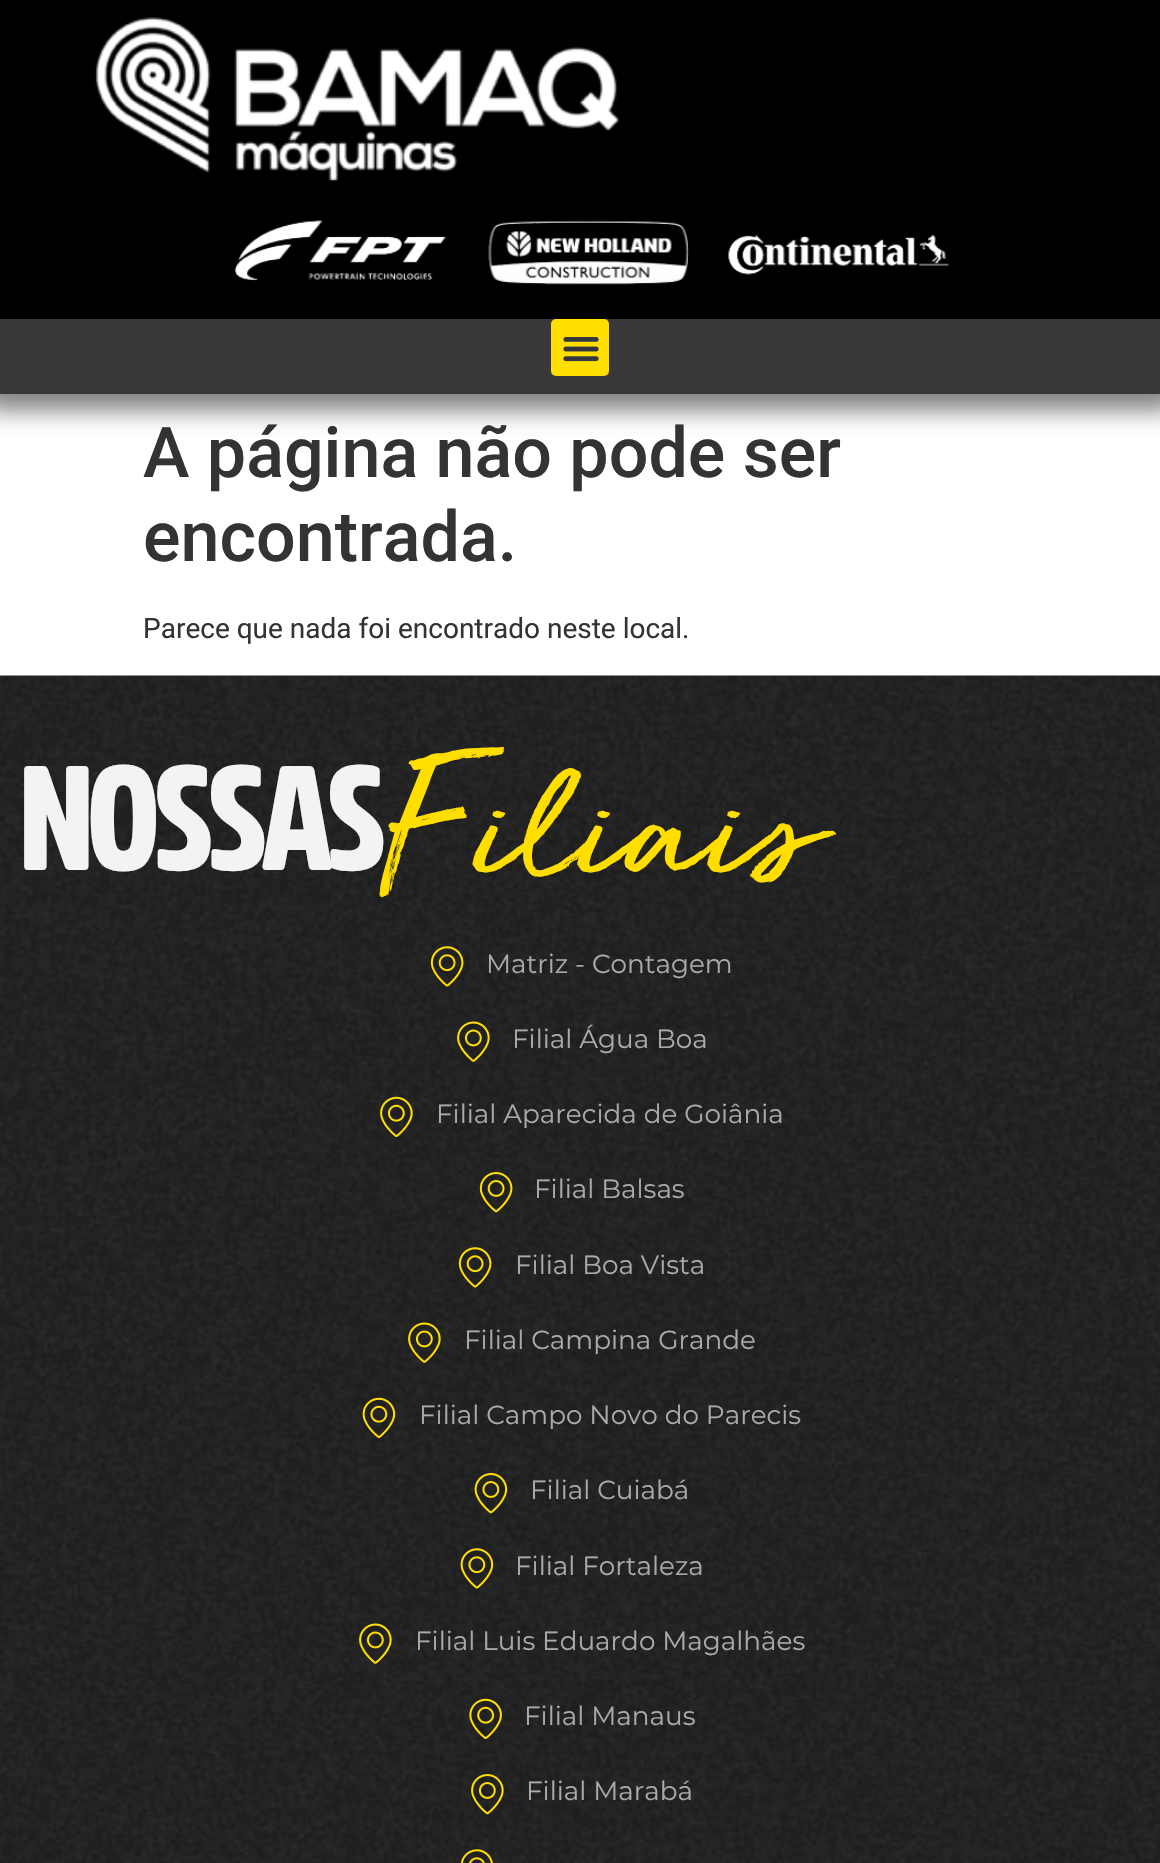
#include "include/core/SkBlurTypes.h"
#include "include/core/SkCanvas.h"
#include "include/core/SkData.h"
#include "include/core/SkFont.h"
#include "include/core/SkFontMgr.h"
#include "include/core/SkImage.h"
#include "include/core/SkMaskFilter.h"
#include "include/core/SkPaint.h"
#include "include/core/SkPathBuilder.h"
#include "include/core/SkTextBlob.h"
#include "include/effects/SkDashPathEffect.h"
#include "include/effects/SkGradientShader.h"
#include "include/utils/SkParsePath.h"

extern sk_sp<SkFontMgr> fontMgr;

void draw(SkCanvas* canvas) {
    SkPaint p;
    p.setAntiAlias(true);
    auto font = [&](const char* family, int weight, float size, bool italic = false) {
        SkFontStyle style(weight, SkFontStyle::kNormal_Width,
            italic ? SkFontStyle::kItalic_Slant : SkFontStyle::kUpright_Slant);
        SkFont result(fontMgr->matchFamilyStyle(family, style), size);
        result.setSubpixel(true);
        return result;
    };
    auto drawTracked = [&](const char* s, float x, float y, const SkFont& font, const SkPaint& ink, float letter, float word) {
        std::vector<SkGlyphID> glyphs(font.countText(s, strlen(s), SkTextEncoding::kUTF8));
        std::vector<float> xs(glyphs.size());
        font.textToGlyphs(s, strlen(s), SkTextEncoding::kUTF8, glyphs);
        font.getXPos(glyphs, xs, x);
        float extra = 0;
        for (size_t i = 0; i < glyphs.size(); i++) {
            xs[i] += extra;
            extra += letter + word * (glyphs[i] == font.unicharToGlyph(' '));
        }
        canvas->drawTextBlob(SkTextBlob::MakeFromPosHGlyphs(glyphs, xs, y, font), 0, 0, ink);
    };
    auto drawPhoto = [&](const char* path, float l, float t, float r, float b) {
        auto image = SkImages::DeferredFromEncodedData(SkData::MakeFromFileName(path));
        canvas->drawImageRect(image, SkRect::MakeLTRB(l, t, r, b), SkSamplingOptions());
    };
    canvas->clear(0xFFFFFFFF);
    p.setColor(0xFF000000);
    canvas->drawRect(SkRect::MakeLTRB(0, 0, 1160, 319), p);
    drawPhoto("media/1.png", 95, 17, 620, 181);
    drawPhoto("media/2.png", 234, 220, 950, 285);
    p.setColor(0x80000000);
    p.setMaskFilter(SkMaskFilter::MakeBlur(kNormal_SkBlurStyle, 11.5f));
    canvas->drawRect(SkRect::MakeLTRB(-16, 303, 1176, 410), p);
    p.setMaskFilter(nullptr);
    p.setColor(0xFF383838);
    canvas->drawRect(SkRect::MakeLTRB(0, 319, 1160, 394), p);
    p.setColor(0xFFFFDE00);
    canvas->drawRoundRect(SkRect::MakeLTRB(551, 319, 609, 376), 5, 5, p);
    drawPhoto("media/3.png", 563, 337, 599, 362);
    auto font1 = font("Roboto", 500, 70);
    p.setColor(0xFF333333);
    canvas->drawString("A página não pode ser", 143, 477, font1, p);
    canvas->drawString("encontrada.", 143, 561, font1, p);
    auto font2 = font("Roboto", 400, 28);
    canvas->drawString("Parece que nada foi encontrado neste local.", 143, 638, font2, p);
    drawPhoto("media/4.png", 0, 675, 1160, 1863);
    auto font3 = font("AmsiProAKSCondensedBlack", 900, 147);
    p.setColor(0xFFF3F3F3);
    drawTracked("NOSSAS", 18, 870, font3, p, -8.75f, 0);
    auto font4 = font("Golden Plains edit", 400, 185.5f);
    p.setColor(0xFFFFDE00);
    canvas->drawString("Filiais", 379, 870, font4, p);
    drawPhoto("media/5.png", 430, 946, 464, 987);
    auto font5 = font("Montserrat", 400, 26.25f);
    p.setColor(0xFFAAAAAA);
    canvas->drawString("Matriz - Contagem", 486, 973, font5, p);
    drawPhoto("media/6.png", 457, 1021, 490, 1062);
    canvas->drawString("Filial Água Boa", 512, 1048, font5, p);
    drawPhoto("media/7.png", 380, 1096, 413, 1137);
    canvas->drawString("Filial Aparecida de Goiânia", 436, 1123, font5, p);
    drawPhoto("media/8.png", 479, 1172, 513, 1213);
    canvas->drawString("Filial Balsas", 534, 1198, font5, p);
    drawPhoto("media/9.png", 458, 1247, 492, 1288);
    canvas->drawString("Filial Boa Vista", 515, 1274, font5, p);
    drawPhoto("media/10.png", 408, 1322, 441, 1363);
    canvas->drawString("Filial Campina Grande", 464, 1349, font5, p);
    drawPhoto("media/11.png", 362, 1397, 396, 1438);
    canvas->drawString("Filial Campo Novo do Parecis", 419, 1424, font5, p);
    drawPhoto("media/12.png", 474, 1473, 508, 1514);
    canvas->drawString("Filial Cuiabá", 530, 1499, font5, p);
    drawPhoto("media/13.png", 460, 1548, 494, 1589);
    canvas->drawString("Filial Fortaleza", 515, 1575, font5, p);
    drawPhoto("media/14.png", 359, 1623, 392, 1664);
    canvas->drawString("Filial Luis Eduardo Magalhães", 415, 1650, font5, p);
    drawPhoto("media/15.png", 469, 1698, 502, 1739);
    canvas->drawString("Filial Manaus", 524, 1725, font5, p);
    drawPhoto("media/16.png", 471, 1774, 504, 1815);
    canvas->drawString("Filial Marabá", 526, 1800, font5, p);
    drawPhoto("media/17.png", 460, 1849, 493, 1863);
}
